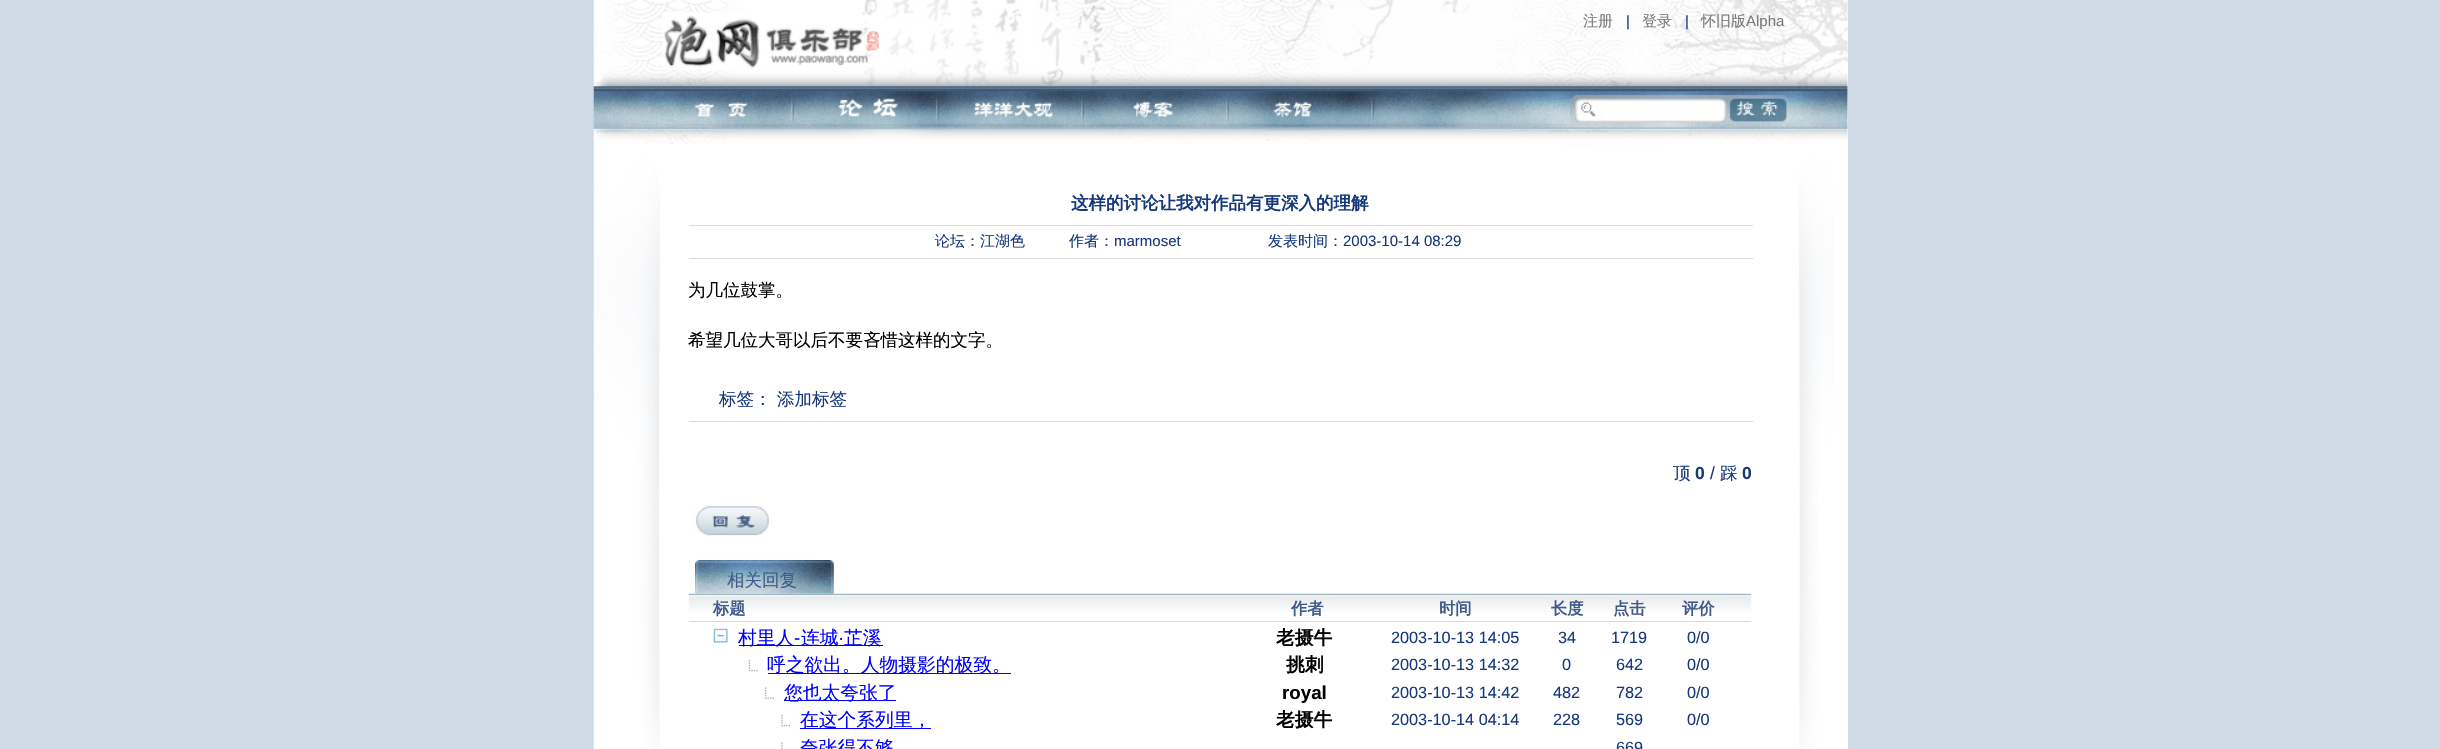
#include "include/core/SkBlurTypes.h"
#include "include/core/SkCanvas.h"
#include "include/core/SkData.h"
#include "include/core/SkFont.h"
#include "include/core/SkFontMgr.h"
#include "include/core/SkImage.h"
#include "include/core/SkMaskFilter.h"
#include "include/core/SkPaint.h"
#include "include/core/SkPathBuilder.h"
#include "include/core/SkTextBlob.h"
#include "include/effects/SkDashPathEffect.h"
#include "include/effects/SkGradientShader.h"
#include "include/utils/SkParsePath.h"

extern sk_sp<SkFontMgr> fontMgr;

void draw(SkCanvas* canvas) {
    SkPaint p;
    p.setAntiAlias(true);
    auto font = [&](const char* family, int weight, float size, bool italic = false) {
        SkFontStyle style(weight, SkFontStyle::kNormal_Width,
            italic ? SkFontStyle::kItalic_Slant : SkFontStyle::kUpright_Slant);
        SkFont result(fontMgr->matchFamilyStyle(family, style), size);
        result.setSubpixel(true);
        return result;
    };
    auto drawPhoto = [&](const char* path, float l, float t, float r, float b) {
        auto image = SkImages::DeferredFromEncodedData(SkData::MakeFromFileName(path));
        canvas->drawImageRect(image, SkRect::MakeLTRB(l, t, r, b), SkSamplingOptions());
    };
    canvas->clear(0xFFCEDAE6);
    p.setColor(0xFFFFFFFF);
    canvas->drawRect(SkRect::MakeLTRB(594, 0, 1848, 749), p);
    drawPhoto("media/1.png", 593, 0, 1848, 144);
    drawPhoto("media/2.png", 662, 12, 894, 70);
    auto font1 = font("WenQuanYi Zen Hei", 500, 15);
    p.setColor(0xFF797979);
    canvas->drawString("注册", 1583, 26, font1, p);
    auto font2 = font("Liberation Sans", 400, 15);
    p.setColor(0xFF16387C);
    canvas->drawString("|", 1626, 26, font2, p);
    p.setColor(0xFF797979);
    canvas->drawString("登录", 1642, 26, font1, p);
    p.setColor(0xFF16387C);
    canvas->drawString("|", 1685, 26, font2, p);
    p.setColor(0xFF797979);
    canvas->drawString("怀旧版", 1701, 26, font1, p);
    canvas->drawString("Alpha", 1746, 26, font2, p);
    drawPhoto("media/3.png", 650, 94, 795, 124);
    drawPhoto("media/4.png", 795, 94, 940, 124);
    drawPhoto("media/5.png", 940, 94, 1085, 124);
    drawPhoto("media/6.png", 1085, 94, 1230, 124);
    drawPhoto("media/7.png", 1230, 94, 1375, 124);
    drawPhoto("media/8.png", 1736, 100, 1778, 118);
    drawPhoto("media/9.png", 593, 144, 1834, 749);
    p.setColor(0xFFD5DAE0);
    canvas->drawRect(SkRect::MakeLTRB(689, 225, 1753, 226), p);
    auto font3 = font("WenQuanYi Zen Hei", 700, 17.5f);
    p.setColor(0xFF16387C);
    canvas->drawString("这样的讨论让我对作品有更深入的理解", 1071, 209, font3, p);
    p.setColor(0xFFD5DAE0);
    canvas->drawRect(SkRect::MakeLTRB(689, 258, 1753, 259), p);
    p.setColor(0xFF16387C);
    canvas->drawString("论坛：江湖色", 935, 246, font1, p);
    canvas->drawString("作者：", 1069, 246, font1, p);
    canvas->drawString("marmoset", 1114, 246, font2, p);
    canvas->drawString("发表时间：", 1268, 246, font1, p);
    canvas->drawString("2003-10-14 08:29", 1343, 246, font2, p);
    auto font4 = font("WenQuanYi Zen Hei", 500, 17.5f);
    p.setColor(0xFF000000);
    canvas->drawString("为几位鼓掌。", 688, 296, font4, p);
    canvas->drawString("希望几位大哥以后不要吝惜这样的文字。", 688, 346, font4, p);
    p.setColor(0xFFD5DAE0);
    canvas->drawRect(SkRect::MakeLTRB(689, 421, 1753, 422), p);
    p.setColor(0xFF16387C);
    {
        const struct { const char* s; float x, y; } items[] = {
            {"标签：", 719, 405},
            {"添加标签", 777, 405},
            {"顶", 1673, 479},
        };
        for (auto [s, x, y] : items) {
            canvas->drawString(s, x, y, font4, p);
        }
    }
    auto font5 = font("Liberation Sans", 700, 17.5f);
    canvas->drawString("0", 1695, 479, font5, p);
    auto font6 = font("Liberation Sans", 400, 17.5f);
    canvas->drawString("/", 1710, 479, font6, p);
    canvas->drawString("踩", 1720, 479, font4, p);
    canvas->drawString("0", 1742, 479, font5, p);
    drawPhoto("media/10.png", 692, 505, 769, 536);
    drawPhoto("media/12.png", 688, 593, 1752, 612);
    drawPhoto("media/11.png", 695, 560, 834, 594);
    p.setColor(0xFF405A8A);
    canvas->drawString("相关回复", 727, 586, font4, p);
    p.setColor(0xFFD5DAE0);
    canvas->drawRect(SkRect::MakeLTRB(689, 621, 1751, 622), p);
    auto font7 = font("WenQuanYi Zen Hei", 700, 16.25f);
    p.setColor(0xFF405A8A);
    {
        const struct { const char* s; float x, y; } items[] = {
            {"标题", 713, 614},
            {"作者", 1291, 614},
            {"时间", 1439, 614},
            {"长度", 1551, 614},
            {"点击", 1613, 614},
            {"评价", 1682, 614},
        };
        for (auto [s, x, y] : items) {
            canvas->drawString(s, x, y, font7, p);
        }
    }
    drawPhoto("media/13.png", 713, 628, 728, 643);
    p.setColor(0xFF0000FF);
    canvas->drawRect(SkRect::MakeLTRB(739, 645, 883, 646), p);
    auto font8 = font("WenQuanYi Zen Hei", 500, 18.75f);
    canvas->drawString("村里人", 738, 644, font8, p);
    auto font9 = font("Liberation Sans", 400, 18.75f);
    canvas->drawString("-", 794, 644, font9, p);
    canvas->drawString("连城", 801, 644, font8, p);
    canvas->drawString("·", 838, 644, font9, p);
    canvas->drawString("芷溪", 844, 644, font8, p);
    auto font10 = font("WenQuanYi Zen Hei", 700, 18.75f);
    p.setColor(0xFF000000);
    canvas->drawString("老摄牛", 1276, 644, font10, p);
    auto font11 = font("Liberation Sans", 400, 16.25f);
    p.setColor(0xFF16387C);
    {
        const struct { const char* s; float x, y; } items[] = {
            {"2003-10-13 14:05", 1391, 643},
            {"34", 1558, 643},
            {"1719", 1611, 643},
            {"0/0", 1687, 643},
        };
        for (auto [s, x, y] : items) {
            canvas->drawString(s, x, y, font11, p);
        }
    }
    drawPhoto("media/14.png", 748, 659, 758, 672);
    p.setColor(0xFF0000FF);
    canvas->drawRect(SkRect::MakeLTRB(768, 673, 1011, 674), p);
    canvas->drawString("呼之欲出。人物摄影的极致。", 767, 671, font8, p);
    p.setColor(0xFF000000);
    canvas->drawString("挑刺", 1286, 671, font10, p);
    p.setColor(0xFF16387C);
    {
        const struct { const char* s; float x, y; } items[] = {
            {"2003-10-13 14:32", 1391, 670},
            {"0", 1562, 670},
            {"642", 1616, 670},
            {"0/0", 1687, 670},
        };
        for (auto [s, x, y] : items) {
            canvas->drawString(s, x, y, font11, p);
        }
    }
    drawPhoto("media/15.png", 764, 687, 774, 699);
    p.setColor(0xFF0000FF);
    canvas->drawRect(SkRect::MakeLTRB(784, 700, 896, 701), p);
    canvas->drawString("您也太夸张了", 784, 699, font8, p);
    auto font12 = font("Liberation Sans", 700, 18.75f);
    p.setColor(0xFF000000);
    canvas->drawString("royal", 1282, 699, font12, p);
    p.setColor(0xFF16387C);
    {
        const struct { const char* s; float x, y; } items[] = {
            {"2003-10-13 14:42", 1391, 698},
            {"482", 1553, 698},
            {"782", 1616, 698},
            {"0/0", 1687, 698},
        };
        for (auto [s, x, y] : items) {
            canvas->drawString(s, x, y, font11, p);
        }
    }
    drawPhoto("media/16.png", 781, 714, 791, 727);
    p.setColor(0xFF0000FF);
    canvas->drawRect(SkRect::MakeLTRB(800, 728, 931, 729), p);
    canvas->drawString("在这个系列里，", 800, 726, font8, p);
    p.setColor(0xFF000000);
    canvas->drawString("老摄牛", 1276, 726, font10, p);
    p.setColor(0xFF16387C);
    {
        const struct { const char* s; float x, y; } items[] = {
            {"2003-10-14 04:14", 1391, 725},
            {"228", 1553, 725},
            {"569", 1616, 725},
            {"0/0", 1687, 725},
        };
        for (auto [s, x, y] : items) {
            canvas->drawString(s, x, y, font11, p);
        }
    }
    drawPhoto("media/17.png", 781, 742, 783, 749);
    p.setColor(0xFF0000FF);
    canvas->drawString("夸张得不够", 800, 754, font8, p);
    p.setColor(0xFF16387C);
    canvas->drawString("669", 1616, 753, font11, p);
}
